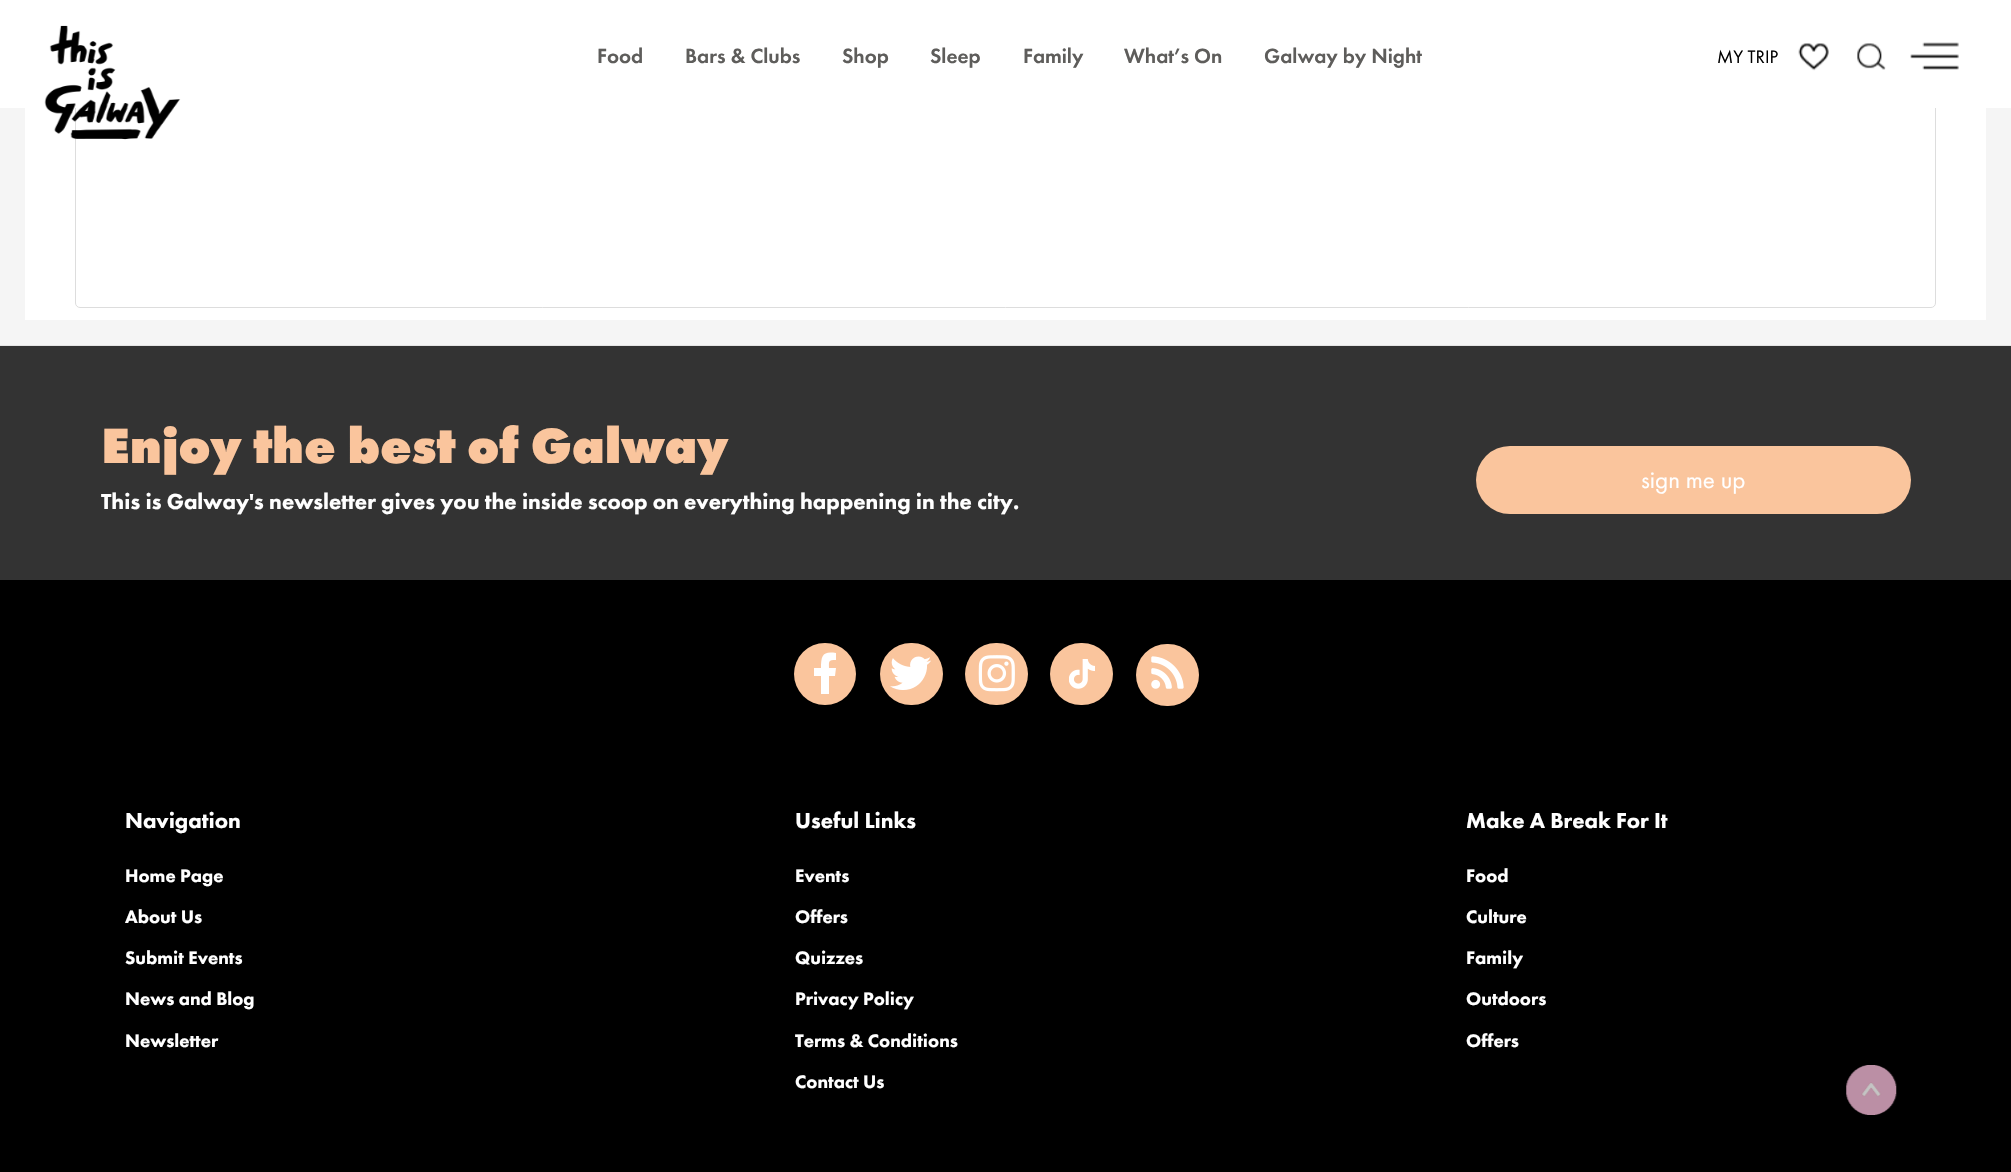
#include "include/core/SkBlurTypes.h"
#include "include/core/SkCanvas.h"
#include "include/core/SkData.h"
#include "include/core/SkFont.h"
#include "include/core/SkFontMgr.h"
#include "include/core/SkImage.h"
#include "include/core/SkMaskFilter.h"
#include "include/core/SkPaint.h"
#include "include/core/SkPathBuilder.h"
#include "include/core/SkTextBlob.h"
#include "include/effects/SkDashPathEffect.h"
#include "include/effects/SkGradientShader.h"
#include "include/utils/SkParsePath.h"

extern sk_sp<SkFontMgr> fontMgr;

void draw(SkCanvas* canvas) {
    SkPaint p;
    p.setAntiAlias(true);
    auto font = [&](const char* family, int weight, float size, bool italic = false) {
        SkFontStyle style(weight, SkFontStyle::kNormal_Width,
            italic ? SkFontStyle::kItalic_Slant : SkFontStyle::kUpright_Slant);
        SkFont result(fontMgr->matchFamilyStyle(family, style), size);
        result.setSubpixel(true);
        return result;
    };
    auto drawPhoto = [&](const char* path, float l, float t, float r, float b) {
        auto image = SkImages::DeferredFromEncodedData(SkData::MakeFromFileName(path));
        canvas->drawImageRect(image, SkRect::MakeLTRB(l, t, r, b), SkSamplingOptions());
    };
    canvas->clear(0xFFF5F5F5);
    p.setColor(0xFFFFFFFF);
    canvas->drawRect(SkRect::MakeLTRB(25, 108, 1986, 320), p);
    p.setStyle(SkPaint::kStroke_Style);
    p.setStrokeWidth(1);
    p.setColor(0xFFDDDDDD);
    canvas->drawRoundRect(SkRect::MakeLTRB(75.5f, -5.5f, 1935.5f, 307.5f), 4.5f, 4.5f, p);
    p.setStyle(SkPaint::kFill_Style);
    p.setColor(0xFFFFFFFF);
    canvas->drawRect(SkRect::MakeLTRB(0, 0, 2011, 108), p);
    drawPhoto("media/1.png", 44, 25, 181, 140);
    auto font1 = font("Futura PT", 500, 21.25f);
    p.setColor(0xFF5E5D5B);
    {
        const struct { const char* s; float x, y; } items[] = {
            {"Food", 597, 63},
            {"Bars & Clubs", 685, 63},
            {"Shop", 842, 63},
            {"Sleep", 930, 63},
            {"Family", 1023, 63},
            {"What’s On", 1124, 63},
            {"Galway by Night", 1264, 63},
        };
        for (auto [s, x, y] : items) {
            canvas->drawString(s, x, y, font1, p);
        }
    }
    auto font2 = font("Futura PT", 400, 18.75f);
    p.setColor(0xFF000000);
    canvas->drawString("MY TRIP", 1717, 63, font2, p);
    drawPhoto("media/2.png", 1798, 43, 1829, 71);
    drawPhoto("media/3.png", 1857, 43, 1886, 70);
    drawPhoto("media/4.png", 1910, 42, 1959, 70);
    p.setColor(0xFFE5E5E5);
    canvas->drawRect(SkRect::MakeLTRB(0, 345, 2011, 346), p);
    p.setColor(0xFF333333);
    canvas->drawRect(SkRect::MakeLTRB(0, 346, 2011, 580), p);
    auto font3 = font("Futura PT", 800, 51.25f);
    p.setColor(0xFFFAC59D);
    canvas->drawString("Enjoy the best of Galway", 101, 463, font3, p);
    auto font4 = font("Futura PT", 900, 22.5f);
    p.setColor(0xFFFFFFFF);
    canvas->drawString("This is Galway's newsletter gives you the inside scoop on everything happening in the city.", 101, 509, font4, p);
    p.setColor(0xFFFAC59D);
    canvas->drawRoundRect(SkRect::MakeLTRB(1476, 446, 1911, 514), 34, 34, p);
    auto font5 = font("Futura PT", 400, 25);
    p.setColor(0xFFFFFFFF);
    canvas->drawString("sign me up", 1641, 488, font5, p);
    p.setColor(0xFF000000);
    canvas->drawRect(SkRect::MakeLTRB(0, 580, 2011, 1172), p);
    p.setColor(0xFFFAC59D);
    canvas->drawCircle(825, 674, 31, p);
    p.setColor(0xFFFFFFFF);
    canvas->drawPath(SkPathBuilder().moveTo(835, 676).lineTo(829, 676).lineTo(829, 694).lineTo(821, 694).lineTo(821, 676).lineTo(814, 676).lineTo(814, 668).lineTo(821, 668).cubicTo(821, 655, 823, 651, 836, 653).lineTo(836, 660).cubicTo(828, 660, 829, 661, 829, 668).lineTo(836, 668).close().detach(), p);
    p.setColor(0xFFFAC59D);
    canvas->drawRoundRect(SkRect::MakeLTRB(880, 643, 943, 705), 31, 31, p);
    drawPhoto("media/5.png", 890, 656, 931, 690);
    canvas->drawRoundRect(SkRect::MakeLTRB(965, 643, 1028, 705), 31, 31, p);
    drawPhoto("media/6.png", 978, 655, 1015, 692);
    canvas->drawRoundRect(SkRect::MakeLTRB(1050, 643, 1113, 705), 31, 31, p);
    drawPhoto("media/7.png", 1069, 659, 1095, 689);
    canvas->drawRoundRect(SkRect::MakeLTRB(1136, 644, 1199, 706), 31, 31, p);
    drawPhoto("media/8.png", 1151, 656, 1184, 689);
    p.setColor(0xFFFFFFFF);
    canvas->drawString("Navigation", 125, 828, font4, p);
    auto font6 = font("Futura PT", 900, 18.75f);
    {
        const struct { const char* s; float x, y; } items[] = {
            {"Home Page", 125, 882},
            {"About Us", 125, 923},
            {"Submit Events", 125, 964},
            {"News and Blog", 125, 1005},
            {"Newsletter", 125, 1047},
        };
        for (auto [s, x, y] : items) {
            canvas->drawString(s, x, y, font6, p);
        }
    }
    canvas->drawString("Useful Links", 795, 828, font4, p);
    {
        const struct { const char* s; float x, y; } items[] = {
            {"Events", 795, 882},
            {"Offers", 795, 923},
            {"Quizzes", 795, 964},
            {"Privacy Policy", 795, 1005},
            {"Terms & Conditions", 795, 1047},
            {"Contact Us", 795, 1088},
        };
        for (auto [s, x, y] : items) {
            canvas->drawString(s, x, y, font6, p);
        }
    }
    canvas->drawString("Make A Break For It", 1466, 828, font4, p);
    {
        const struct { const char* s; float x, y; } items[] = {
            {"Food", 1466, 882},
            {"Culture", 1466, 923},
            {"Family", 1466, 964},
            {"Outdoors", 1466, 1005},
            {"Offers", 1466, 1047},
        };
        for (auto [s, x, y] : items) {
            canvas->drawString(s, x, y, font6, p);
        }
    }
    drawPhoto("media/9.png", 1846, 1065, 1897, 1115);
}
